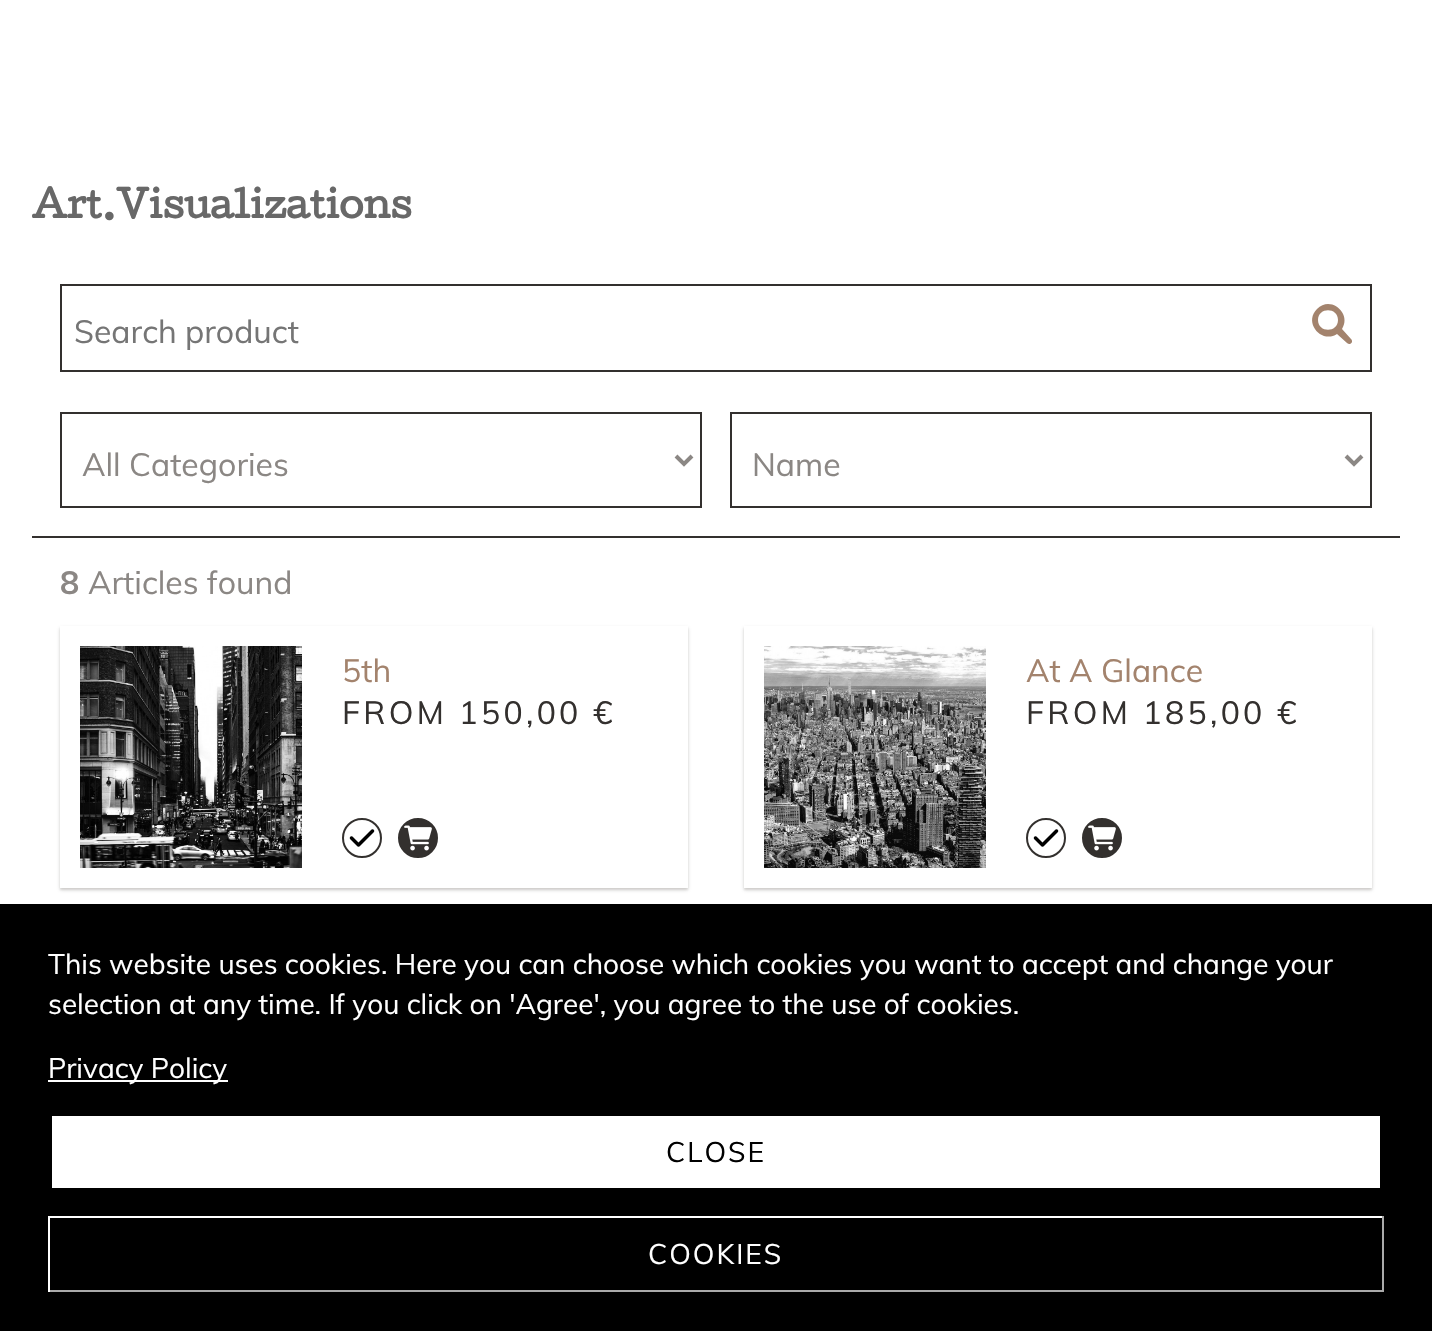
#include "include/core/SkBlurTypes.h"
#include "include/core/SkCanvas.h"
#include "include/core/SkData.h"
#include "include/core/SkFont.h"
#include "include/core/SkFontMgr.h"
#include "include/core/SkImage.h"
#include "include/core/SkMaskFilter.h"
#include "include/core/SkPaint.h"
#include "include/core/SkPathBuilder.h"
#include "include/core/SkTextBlob.h"
#include "include/effects/SkDashPathEffect.h"
#include "include/effects/SkGradientShader.h"
#include "include/utils/SkParsePath.h"

extern sk_sp<SkFontMgr> fontMgr;

void draw(SkCanvas* canvas) {
    SkPaint p;
    p.setAntiAlias(true);
    auto font = [&](const char* family, int weight, float size, bool italic = false) {
        SkFontStyle style(weight, SkFontStyle::kNormal_Width,
            italic ? SkFontStyle::kItalic_Slant : SkFontStyle::kUpright_Slant);
        SkFont result(fontMgr->matchFamilyStyle(family, style), size);
        result.setSubpixel(true);
        return result;
    };
    auto drawTracked = [&](const char* s, float x, float y, const SkFont& font, const SkPaint& ink, float letter, float word) {
        std::vector<SkGlyphID> glyphs(font.countText(s, strlen(s), SkTextEncoding::kUTF8));
        std::vector<float> xs(glyphs.size());
        font.textToGlyphs(s, strlen(s), SkTextEncoding::kUTF8, glyphs);
        font.getXPos(glyphs, xs, x);
        float extra = 0;
        for (size_t i = 0; i < glyphs.size(); i++) {
            xs[i] += extra;
            extra += letter + word * (glyphs[i] == font.unicharToGlyph(' '));
        }
        canvas->drawTextBlob(SkTextBlob::MakeFromPosHGlyphs(glyphs, xs, y, font), 0, 0, ink);
    };
    auto drawPhoto = [&](const char* path, float l, float t, float r, float b) {
        auto image = SkImages::DeferredFromEncodedData(SkData::MakeFromFileName(path));
        canvas->drawImageRect(image, SkRect::MakeLTRB(l, t, r, b), SkSamplingOptions());
    };
    canvas->clear(0xFFFFFFFF);
    auto font1 = font("Cutive", 700, 36);
    p.setColor(0xFF686868);
    canvas->drawString("Art.Visualizations", 32, 218, font1, p);
    p.setColor(0xFF33302E);
    canvas->drawRect(SkRect::MakeLTRB(32, 536, 1400, 538), p);
    p.setStyle(SkPaint::kStroke_Style);
    p.setStrokeWidth(2);
    canvas->drawRect(SkRect::MakeLTRB(61, 285, 1371, 371), p);
    auto font2 = font("Muli", 400, 32);
    p.setStyle(SkPaint::kFill_Style);
    p.setColor(0xFF757575);
    canvas->drawString("Search product", 74, 343, font2, p);
    p.setColor(0xFFA3836D);
    canvas->drawPath(SkPathBuilder().moveTo(1351, 339).lineTo(1342, 329).cubicTo(1352, 314, 1331, 295, 1317, 309).cubicTo(1303, 323, 1322, 344, 1337, 334).lineTo(1347, 343).cubicTo(1350, 346, 1354, 342, 1351, 339).close().moveTo(1318, 320).cubicTo(1318, 307, 1338, 307, 1338, 320).cubicTo(1338, 333, 1318, 333, 1318, 320).close().detach(), p);
    p.setStyle(SkPaint::kStroke_Style);
    p.setColor(0xFF33302E);
    canvas->drawRect(SkRect::MakeLTRB(61, 413, 701, 507), p);
    p.setStrokeWidth(4);
    p.setColor(0xFF8B8784);
    canvas->drawPath(SkPathBuilder().moveTo(676, 456).lineTo(684, 464).lineTo(692, 456).detach(), p);
    p.setStyle(SkPaint::kFill_Style);
    canvas->drawString("All Categories", 82, 476, font2, p);
    p.setStyle(SkPaint::kStroke_Style);
    p.setStrokeWidth(2);
    p.setColor(0xFF33302E);
    canvas->drawRect(SkRect::MakeLTRB(731, 413, 1371, 507), p);
    p.setStrokeWidth(4);
    p.setColor(0xFF8B8784);
    canvas->drawPath(SkPathBuilder().moveTo(1346, 456).lineTo(1354, 464).lineTo(1362, 456).detach(), p);
    p.setStyle(SkPaint::kFill_Style);
    canvas->drawString("Name", 752, 476, font2, p);
    auto font3 = font("Muli", 700, 32);
    canvas->drawString("8", 60, 594, font3, p);
    canvas->drawString("Articles found", 88, 594, font2, p);
    canvas->save();
    canvas->clipPath(SkPathBuilder(SkPathFillType::kEvenOdd).moveTo(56, 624).lineTo(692, 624).lineTo(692, 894).lineTo(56, 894).close().moveTo(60, 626).lineTo(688, 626).lineTo(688, 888).lineTo(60, 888).close().detach(), true);
    p.setColor(0x1A1E130C);
    p.setMaskFilter(SkMaskFilter::MakeBlur(kNormal_SkBlurStyle, 1));
    canvas->drawRect(SkRect::MakeLTRB(60, 628, 688, 890), p);
    p.setMaskFilter(nullptr);
    canvas->restore();
    canvas->save();
    canvas->clipPath(SkPathBuilder(SkPathFillType::kEvenOdd).moveTo(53, 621).lineTo(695, 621).lineTo(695, 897).lineTo(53, 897).close().moveTo(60, 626).lineTo(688, 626).lineTo(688, 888).lineTo(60, 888).close().detach(), true);
    p.setColor(0x261E130C);
    p.setMaskFilter(SkMaskFilter::MakeBlur(kNormal_SkBlurStyle, 2));
    canvas->drawRect(SkRect::MakeLTRB(60, 628, 688, 890), p);
    p.setMaskFilter(nullptr);
    canvas->restore();
    drawPhoto("media/1.png", 80, 646, 302, 868);
    p.setColor(0xFFA3836D);
    canvas->drawString("5th", 342, 682, font2, p);
    p.setColor(0xFF33302E);
    drawTracked("FROM 150,00 €", 342, 724, font2, p, 3.25f, 0);
    p.setStyle(SkPaint::kStroke_Style);
    p.setStrokeWidth(2);
    canvas->drawCircle(362, 838, 19, p);
    drawPhoto("media/2.png", 349, 829, 375, 847);
    p.setStyle(SkPaint::kFill_Style);
    canvas->drawCircle(418, 838, 19, p);
    p.setStyle(SkPaint::kStroke_Style);
    canvas->drawCircle(418, 838, 19, p);
    drawPhoto("media/3.png", 404, 825, 432, 851);
    canvas->save();
    canvas->clipPath(SkPathBuilder(SkPathFillType::kEvenOdd).moveTo(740, 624).lineTo(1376, 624).lineTo(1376, 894).lineTo(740, 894).close().moveTo(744, 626).lineTo(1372, 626).lineTo(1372, 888).lineTo(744, 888).close().detach(), true);
    p.setStyle(SkPaint::kFill_Style);
    p.setColor(0x1A1E130C);
    p.setMaskFilter(SkMaskFilter::MakeBlur(kNormal_SkBlurStyle, 1));
    canvas->drawRect(SkRect::MakeLTRB(744, 628, 1372, 890), p);
    p.setMaskFilter(nullptr);
    canvas->restore();
    canvas->save();
    canvas->clipPath(SkPathBuilder(SkPathFillType::kEvenOdd).moveTo(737, 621).lineTo(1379, 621).lineTo(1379, 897).lineTo(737, 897).close().moveTo(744, 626).lineTo(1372, 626).lineTo(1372, 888).lineTo(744, 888).close().detach(), true);
    p.setColor(0x261E130C);
    p.setMaskFilter(SkMaskFilter::MakeBlur(kNormal_SkBlurStyle, 2));
    canvas->drawRect(SkRect::MakeLTRB(744, 628, 1372, 890), p);
    p.setMaskFilter(nullptr);
    canvas->restore();
    drawPhoto("media/4.png", 764, 646, 986, 868);
    p.setColor(0xFFA3836D);
    canvas->drawString("At A Glance", 1026, 682, font2, p);
    p.setColor(0xFF33302E);
    drawTracked("FROM 185,00 €", 1026, 724, font2, p, 3.25f, 0);
    p.setStyle(SkPaint::kStroke_Style);
    canvas->drawCircle(1046, 838, 19, p);
    drawPhoto("media/2.png", 1033, 829, 1059, 847);
    p.setStyle(SkPaint::kFill_Style);
    canvas->drawCircle(1102, 838, 19, p);
    p.setStyle(SkPaint::kStroke_Style);
    canvas->drawCircle(1102, 838, 19, p);
    drawPhoto("media/3.png", 1088, 825, 1116, 851);
    p.setStyle(SkPaint::kFill_Style);
    p.setColor(0xFF000000);
    canvas->drawRect(SkRect::MakeLTRB(0, 904, 1432, 1331), p);
    auto font4 = font("Muli", 400, 28);
    p.setColor(0xFFFFFFFF);
    canvas->drawString("This website uses cookies. Here you can choose which cookies you want to accept and change your", 48, 974, font4, p);
    canvas->drawString("selection at any time. If you click on 'Agree', you agree to the use of cookies.", 48, 1014, font4, p);
    canvas->drawRect(SkRect::MakeLTRB(48, 1080, 228, 1082), p);
    canvas->drawString("Privacy Policy", 48, 1078, font4, p);
    canvas->drawRect(SkRect::MakeLTRB(52, 1116, 1380, 1188), p);
    p.setColor(0xFF000000);
    drawTracked("CLOSE", 666, 1162, font4, p, 2, 0);
    {
        const struct { float l, t, r, b; SkColor color; } items[] = {
            {48, 1216, 1384, 1218, 0xFFFFFFFF},
            {1382, 1216, 1384, 1292, 0xFFAAAAAA},
            {48, 1290, 1384, 1292, 0xFFAAAAAA},
            {48, 1216, 50, 1292, 0xFFFFFFFF},
        };
        for (auto [l, t, r, b, color] : items) {
            p.setColor(color);
            canvas->drawRect(SkRect::MakeLTRB(l, t, r, b), p);
        }
    }
    drawTracked("COOKIES", 648, 1264, font4, p, 2, 0);
}
